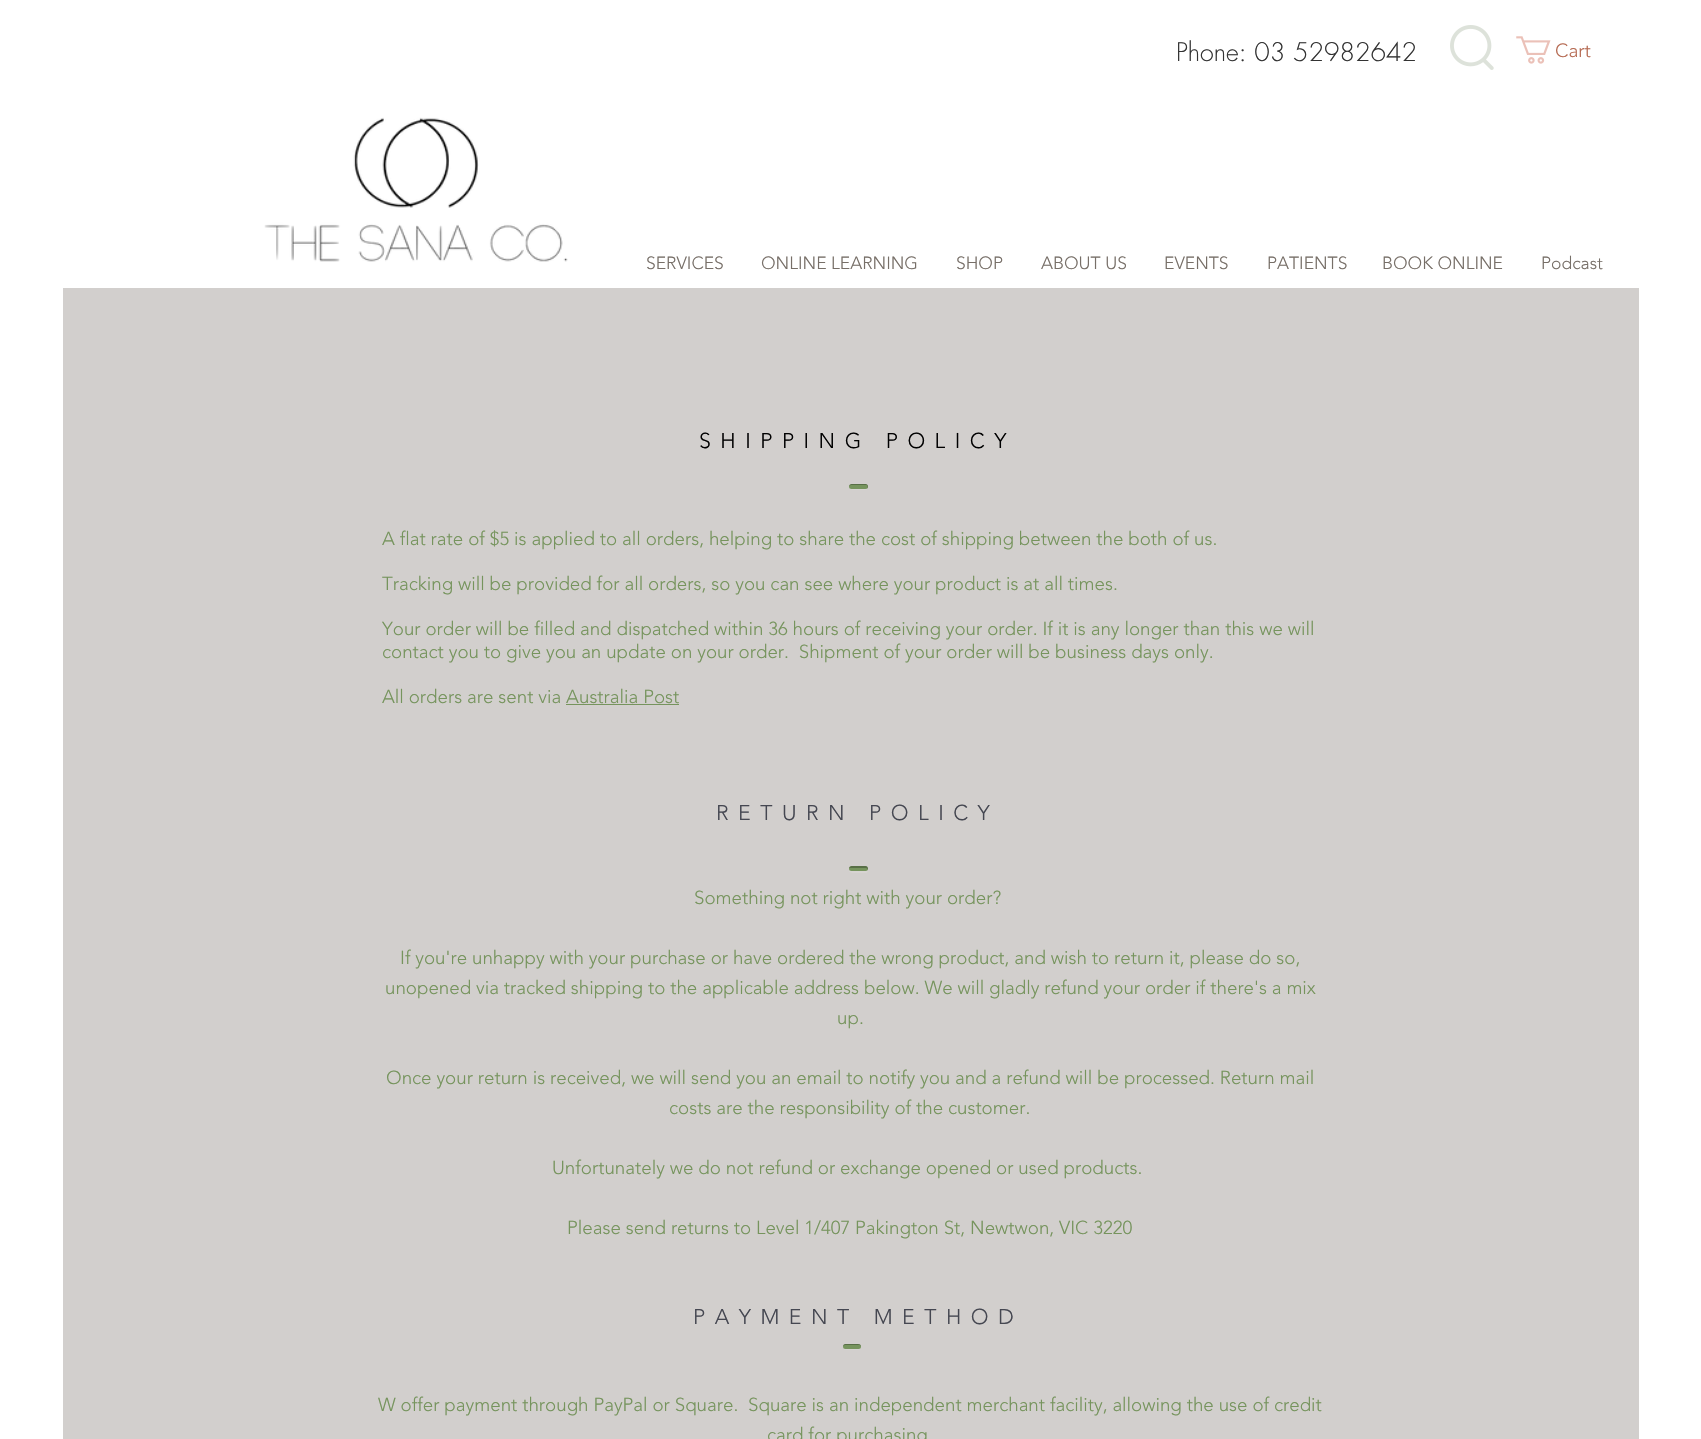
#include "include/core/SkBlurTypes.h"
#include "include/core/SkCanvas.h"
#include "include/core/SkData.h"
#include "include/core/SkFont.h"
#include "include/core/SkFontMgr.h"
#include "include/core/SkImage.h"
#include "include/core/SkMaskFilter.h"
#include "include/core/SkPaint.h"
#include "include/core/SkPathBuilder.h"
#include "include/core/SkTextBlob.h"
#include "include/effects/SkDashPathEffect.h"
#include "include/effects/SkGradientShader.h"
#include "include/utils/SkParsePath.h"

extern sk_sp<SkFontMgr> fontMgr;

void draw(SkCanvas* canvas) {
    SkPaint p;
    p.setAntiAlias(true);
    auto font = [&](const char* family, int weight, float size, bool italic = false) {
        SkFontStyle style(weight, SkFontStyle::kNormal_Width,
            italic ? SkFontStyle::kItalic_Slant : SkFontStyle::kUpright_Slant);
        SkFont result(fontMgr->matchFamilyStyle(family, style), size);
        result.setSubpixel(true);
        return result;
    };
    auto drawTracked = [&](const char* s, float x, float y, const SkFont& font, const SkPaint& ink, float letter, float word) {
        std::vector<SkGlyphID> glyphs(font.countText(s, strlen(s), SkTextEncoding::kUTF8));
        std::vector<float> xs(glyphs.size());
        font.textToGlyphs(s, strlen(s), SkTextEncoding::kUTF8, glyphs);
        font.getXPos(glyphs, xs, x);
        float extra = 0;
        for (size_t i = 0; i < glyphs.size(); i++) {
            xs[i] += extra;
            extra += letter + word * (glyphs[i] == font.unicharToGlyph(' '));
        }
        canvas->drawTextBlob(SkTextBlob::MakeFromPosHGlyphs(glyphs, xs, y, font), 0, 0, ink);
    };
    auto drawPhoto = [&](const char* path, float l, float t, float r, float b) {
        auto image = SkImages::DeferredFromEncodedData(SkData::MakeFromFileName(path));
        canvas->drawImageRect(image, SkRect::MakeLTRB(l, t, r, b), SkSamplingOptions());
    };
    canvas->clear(0xFFFFFFFF);
    auto font1 = font("futura", 300, 25);
    p.setColor(0xFF333333);
    canvas->drawString("Phone: 03 52982642", 1176, 61, font1, p);
    drawPhoto("media/1.png", 1450, 25, 1494, 70);
    drawPhoto("media/2.png", 1516, 36, 1551, 64);
    auto font2 = font("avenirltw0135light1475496", 300, 19);
    p.setColor(0xFFB56951);
    canvas->drawString("Cart", 1555, 57, font2, p);
    drawPhoto("media/3.png", 264, 117, 568, 262);
    auto font3 = font("avenirltw0135light1475496", 300, 17.5f);
    p.setColor(0xFF776F68);
    {
        const struct { const char* s; float x, y; } items[] = {
            {"SERVICES", 646, 269},
            {"ONLINE LEARNING", 761, 269},
            {"SHOP", 956, 269},
            {"ABOUT US", 1041, 269},
            {"EVENTS", 1164, 269},
            {"PATIENTS", 1267, 269},
            {"BOOK ONLINE", 1382, 269},
            {"Podcast", 1541, 269},
        };
        for (auto [s, x, y] : items) {
            canvas->drawString(s, x, y, font3, p);
        }
    }
    p.setColor(0xFFD2CFCD);
    canvas->drawRect(SkRect::MakeLTRB(63, 288, 1639, 1439), p);
    auto font4 = font("avenirltw0135light1475496", 300, 21.25f);
    p.setColor(0xFF000000);
    drawTracked("SHIPPING POLICY", 699, 448, font4, p, 9.5f, 0);
    p.setColor(0xFFD7D4D2);
    canvas->drawPath(SkPathBuilder().moveTo(849, 487.5f).cubicTo(849, 490, 852, 490, 854, 490).lineTo(863, 490).cubicTo(865, 490, 867.5f, 490.5f, 868, 488).cubicTo(868, 487.5f, 868, 486.5f, 867.5f, 486).cubicTo(868, 489, 864.5f, 489, 862.5f, 489).lineTo(853.5f, 489).cubicTo(852, 489, 850, 489, 849, 487.5f).close().detach(), p);
    p.setColor(0xFF76945D);
    canvas->drawRoundRect(SkRect::MakeLTRB(849, 484, 868, 489), 2.5f, 2.5f, p);
    p.setColor(0x40000000);
    canvas->drawPath(SkPathBuilder().moveTo(851, 485).lineTo(866, 485).cubicTo(867.5f, 485, 868, 486.5f, 867, 488.5f).cubicTo(867.5f, 488, 868, 487.5f, 868, 486.5f).cubicTo(868, 485, 867, 484, 865.5f, 484).lineTo(851.5f, 484).cubicTo(850.5f, 484, 849.5f, 485, 849, 486).close().detach(), p);
    auto font5 = font("avenirltw0135light1475496", 300, 18.75f);
    p.setColor(0xFF76945D);
    {
        const struct { const char* s; float x, y; } items[] = {
            {"A flat rate of $5 is applied to all orders, helping to share the cost of shipping between the both of us.", 382, 545},
            {"Tracking will be provided for all orders, so you can see where your product is at all times.", 382, 590},
            {"Your order will be filled and dispatched within 36 hours of receiving your order. If it is any longer than this we will", 382, 635},
            {"contact you to give you an update on your order.  Shipment of your order will be business days only.", 382, 658},
            {"All orders are sent via Australia Post", 382, 703},
        };
        for (auto [s, x, y] : items) {
            canvas->drawString(s, x, y, font5, p);
        }
    }
    canvas->drawRect(SkRect::MakeLTRB(566, 704, 679, 705), p);
    p.setColor(0xFF454751);
    drawTracked("RETURN POLICY", 716, 820, font4, p, 9.5f, 0);
    p.setColor(0xFFD7D4D2);
    canvas->drawPath(SkPathBuilder().moveTo(849, 870).cubicTo(848.5f, 873, 852, 873, 854, 873).lineTo(863, 873).cubicTo(865, 873, 867.5f, 873.5f, 868, 871).cubicTo(868, 870.5f, 868, 869.5f, 867.5f, 869).cubicTo(867.5f, 870.5f, 866.5f, 871, 865, 871).lineTo(851, 871).cubicTo(850.5f, 871, 849.5f, 870.5f, 849, 870).close().detach(), p);
    p.setColor(0xFF76945D);
    canvas->drawRoundRect(SkRect::MakeLTRB(849, 866, 868, 871), 2.5f, 2.5f, p);
    p.setColor(0x40000000);
    canvas->drawPath(SkPathBuilder().moveTo(851.5f, 866).cubicTo(850.5f, 866, 849.5f, 867, 849, 868).lineTo(866, 868).cubicTo(867, 868, 867.5f, 869, 867.5f, 870).cubicTo(868.5f, 868.5f, 867.5f, 866, 865.5f, 866).close().detach(), p);
    p.setColor(0xFF76945D);
    {
        const struct { const char* s; float x, y; } items[] = {
            {"Something not right with your order?", 694, 904},
            {"If you're unhappy with your purchase or have ordered the wrong product, and wish to return it, please do so,", 400, 964},
            {"unopened via tracked shipping to the applicable address below. We will gladly refund your order if there's a mix", 385, 994},
            {"up.", 837, 1024},
            {"Once your return is received, we will send you an email to notify you and a refund will be processed. Return mail", 386, 1084},
            {"costs are the responsibility of the customer.", 669, 1114},
            {"Unfortunately we do not refund or exchange opened or used products.", 552, 1174},
            {"Please send returns to Level 1/407 Pakington St, Newtwon, VIC 3220", 567, 1234},
        };
        for (auto [s, x, y] : items) {
            canvas->drawString(s, x, y, font5, p);
        }
    }
    p.setColor(0xFF454751);
    drawTracked("PAYMENT METHOD", 693, 1324, font4, p, 9.5f, 0);
    p.setColor(0xFFD7D4D2);
    canvas->drawPath(SkPathBuilder().moveTo(843, 1348).cubicTo(843.5f, 1350, 846, 1350, 847.5f, 1350).lineTo(856.5f, 1350).cubicTo(858, 1350, 861, 1350, 861, 1347.5f).cubicTo(860.5f, 1348, 859.5f, 1349, 859, 1349).lineTo(845, 1349).cubicTo(844, 1349, 843.5f, 1348.5f, 843, 1348).close().detach(), p);
    p.setColor(0xFF76945D);
    canvas->drawRoundRect(SkRect::MakeLTRB(843, 1344, 861, 1349), 2.5f, 2.5f, p);
    p.setColor(0x40000000);
    canvas->drawPath(SkPathBuilder().moveTo(845, 1345).lineTo(859, 1345).cubicTo(860, 1345, 860.5f, 1345.5f, 861, 1346.5f).cubicTo(861, 1344, 858, 1344, 856.5f, 1344).lineTo(847.5f, 1344).cubicTo(846, 1344, 843.5f, 1343.5f, 843, 1346).close().detach(), p);
    p.setColor(0xFF76945D);
    canvas->drawString("W offer payment through PayPal or Square.  Square is an independent merchant facility, allowing the use of credit", 378, 1411, font5, p);
    canvas->drawString("card for purchasing", 767, 1441, font5, p);
}
